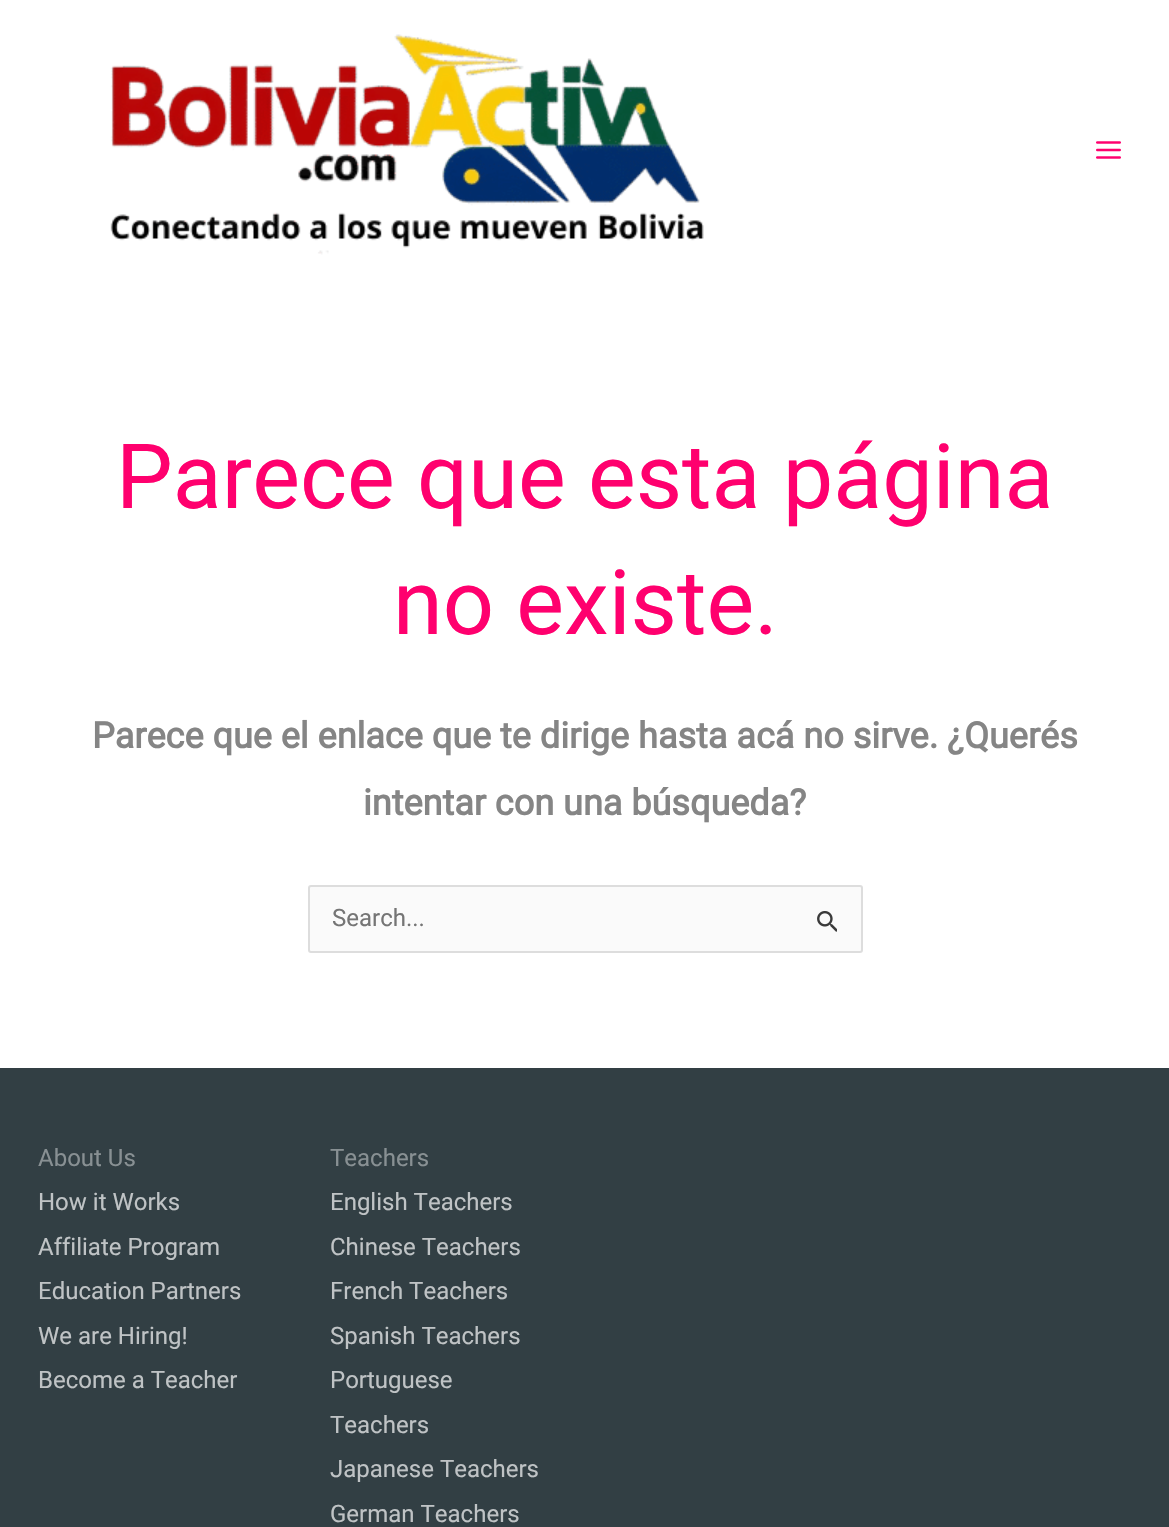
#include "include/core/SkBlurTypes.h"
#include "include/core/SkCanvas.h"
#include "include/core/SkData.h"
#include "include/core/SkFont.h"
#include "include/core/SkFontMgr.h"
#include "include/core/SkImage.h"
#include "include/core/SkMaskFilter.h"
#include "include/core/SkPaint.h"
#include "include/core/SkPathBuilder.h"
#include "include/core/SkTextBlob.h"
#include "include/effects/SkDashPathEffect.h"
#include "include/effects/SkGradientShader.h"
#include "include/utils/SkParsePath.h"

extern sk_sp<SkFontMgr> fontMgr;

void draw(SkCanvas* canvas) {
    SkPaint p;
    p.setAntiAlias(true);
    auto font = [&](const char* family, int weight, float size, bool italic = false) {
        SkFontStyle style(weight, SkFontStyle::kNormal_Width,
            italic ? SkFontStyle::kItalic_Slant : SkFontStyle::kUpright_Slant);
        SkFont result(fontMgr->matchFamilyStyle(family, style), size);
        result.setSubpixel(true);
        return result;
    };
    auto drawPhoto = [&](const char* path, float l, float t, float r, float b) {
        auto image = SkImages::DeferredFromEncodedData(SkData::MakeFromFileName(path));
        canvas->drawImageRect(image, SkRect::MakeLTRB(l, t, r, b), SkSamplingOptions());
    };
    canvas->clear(0xFFFFFFFF);
    drawPhoto("media/1.png", 110, 34, 704, 255);
    drawPhoto("media/2.png", 1096, 141, 1121, 159);
    auto font1 = font("Roboto", 400, 90);
    p.setColor(0xFFFF006E);
    canvas->drawString("Parece que esta página", 116, 508, font1, p);
    canvas->drawString("no existe.", 393, 634, font1, p);
    auto font2 = font("Roboto", 700, 36);
    p.setColor(0xFF858585);
    canvas->drawString("Parece que el enlace que te dirige hasta acá no sirve. ¿Querés", 92, 748, font2, p);
    canvas->drawString("intentar con una búsqueda?", 363, 815, font2, p);
    p.setColor(0xFFFAFAFA);
    canvas->drawRoundRect(SkRect::MakeLTRB(309, 886, 862, 952), 2, 2, p);
    p.setStyle(SkPaint::kStroke_Style);
    p.setStrokeWidth(2);
    p.setColor(0xFFDDDDDD);
    canvas->drawRoundRect(SkRect::MakeLTRB(309, 886, 862, 952), 2, 2, p);
    auto font3 = font("Roboto", 400, 24);
    p.setStyle(SkPaint::kFill_Style);
    p.setColor(0xFF757575);
    canvas->drawString("Search...", 332, 926, font3, p);
    drawPhoto("media/3.png", 817, 911, 837, 932);
    p.setColor(0xFF323F44);
    canvas->drawRect(SkRect::MakeLTRB(0, 1068, 1169, 1527), p);
    p.setColor(0xFF889093);
    canvas->drawString("About Us", 38, 1166, font3, p);
    p.setColor(0xFFBFC3C5);
    {
        const struct { const char* s; float x, y; } items[] = {
            {"How it Works", 38, 1210},
            {"Affiliate Program", 38, 1255},
            {"Education Partners", 38, 1299},
            {"We are Hiring!", 38, 1344},
            {"Become a Teacher", 38, 1388},
        };
        for (auto [s, x, y] : items) {
            canvas->drawString(s, x, y, font3, p);
        }
    }
    p.setColor(0xFF889093);
    canvas->drawString("Teachers", 330, 1166, font3, p);
    p.setColor(0xFFBFC3C5);
    {
        const struct { const char* s; float x, y; } items[] = {
            {"English Teachers", 330, 1210},
            {"Chinese Teachers", 330, 1255},
            {"French Teachers", 330, 1299},
            {"Spanish Teachers", 330, 1344},
            {"Portuguese", 330, 1388},
            {"Teachers", 330, 1433},
            {"Japanese Teachers", 330, 1477},
            {"German Teachers", 330, 1522},
        };
        for (auto [s, x, y] : items) {
            canvas->drawString(s, x, y, font3, p);
        }
    }
}
